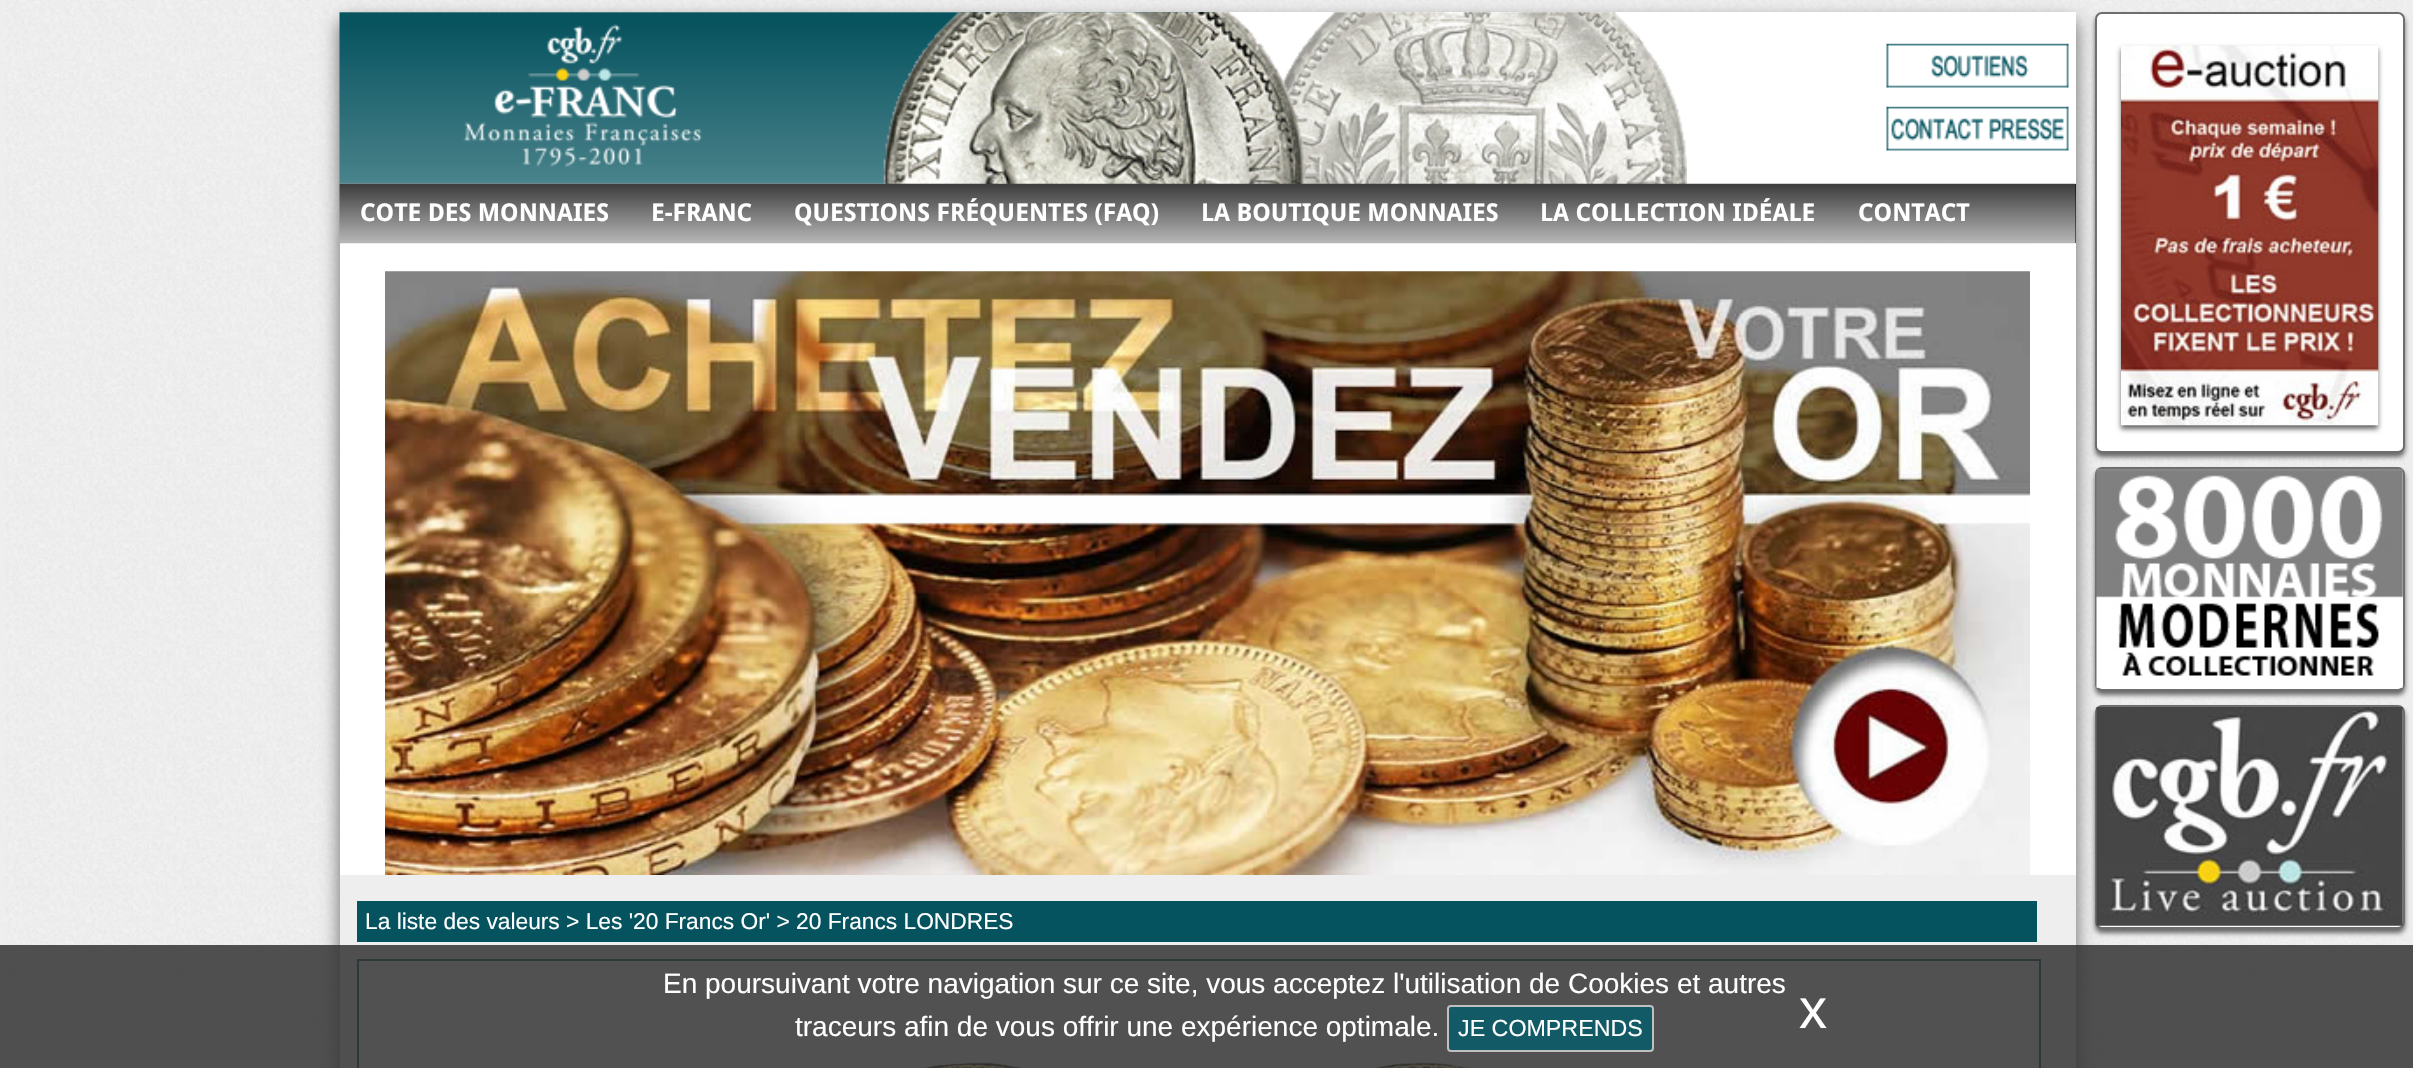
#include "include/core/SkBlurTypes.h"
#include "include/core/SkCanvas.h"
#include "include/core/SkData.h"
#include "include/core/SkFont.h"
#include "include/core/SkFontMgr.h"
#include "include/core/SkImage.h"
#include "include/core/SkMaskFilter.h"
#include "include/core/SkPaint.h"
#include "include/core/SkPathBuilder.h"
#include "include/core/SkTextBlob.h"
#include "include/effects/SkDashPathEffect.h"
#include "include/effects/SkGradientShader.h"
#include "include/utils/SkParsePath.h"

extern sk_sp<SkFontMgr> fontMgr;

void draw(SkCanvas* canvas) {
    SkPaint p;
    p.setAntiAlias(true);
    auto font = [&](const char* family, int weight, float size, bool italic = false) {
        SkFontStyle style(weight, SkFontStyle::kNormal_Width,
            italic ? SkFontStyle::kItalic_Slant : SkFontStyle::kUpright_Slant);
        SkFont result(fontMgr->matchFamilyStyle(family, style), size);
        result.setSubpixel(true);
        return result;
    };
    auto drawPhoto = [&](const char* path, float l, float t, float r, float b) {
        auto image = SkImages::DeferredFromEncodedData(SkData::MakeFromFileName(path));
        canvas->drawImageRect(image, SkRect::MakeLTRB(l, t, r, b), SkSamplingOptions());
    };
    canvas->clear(0xFFEEEEEE);
    drawPhoto("media/1.png", 4, 0, 2406, 1064);
    p.setColor(0xFF666666);
    p.setMaskFilter(SkMaskFilter::MakeBlur(kNormal_SkBlurStyle, 9));
    canvas->drawRect(SkRect::MakeLTRB(340, 21, 2076, 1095), p);
    p.setMaskFilter(nullptr);
    p.setColor(0xFFFFFFFF);
    canvas->drawRect(SkRect::MakeLTRB(340, 12, 2076, 875), p);
    drawPhoto("media/2.png", 339, 12, 1221, 184);
    drawPhoto("media/3.png", 463, 24, 702, 167);
    drawPhoto("media/4.png", 883, 12, 1687, 184);
    drawPhoto("media/5.png", 1886, 43, 2069, 88);
    p.setColor(0xFF666666);
    p.setMaskFilter(SkMaskFilter::MakeBlur(kNormal_SkBlurStyle, 2.5f));
    canvas->drawRoundRect(SkRect::MakeLTRB(2095, 16, 2405, 457), 7, 7, p);
    p.setMaskFilter(nullptr);
    p.setColor(0xFFFFFFFF);
    canvas->drawRoundRect(SkRect::MakeLTRB(2096, 13, 2404, 452), 6, 6, p);
    p.setStyle(SkPaint::kStroke_Style);
    p.setStrokeWidth(2);
    p.setColor(0xFF6C6F6C);
    canvas->drawRoundRect(SkRect::MakeLTRB(2096, 13, 2404, 452), 6, 6, p);
    p.setStyle(SkPaint::kFill_Style);
    p.setColor(0xFF666666);
    p.setMaskFilter(SkMaskFilter::MakeBlur(kNormal_SkBlurStyle, 2.5f));
    canvas->drawRect(SkRect::MakeLTRB(2121, 49, 2378, 429), p);
    p.setMaskFilter(nullptr);
    drawPhoto("media/6.png", 2121, 45, 2379, 426);
    drawPhoto("media/7.png", 1886, 106, 2069, 151);
    p.setMaskFilter(SkMaskFilter::MakeBlur(kNormal_SkBlurStyle, 2.5f));
    canvas->drawRoundRect(SkRect::MakeLTRB(2095, 471, 2405, 695), 7, 7, p);
    p.setMaskFilter(nullptr);
    p.setColor(0xFFFFFFFF);
    canvas->drawRoundRect(SkRect::MakeLTRB(2096, 468, 2404, 690), 6, 6, p);
    p.setStyle(SkPaint::kStroke_Style);
    p.setColor(0xFF6C6F6C);
    canvas->drawRoundRect(SkRect::MakeLTRB(2096, 468, 2404, 690), 6, 6, p);
    drawPhoto("media/8.png", 2096, 469, 2403, 688);
    p.setStyle(SkPaint::kFill_Style);
    p.setColor(0xFF666666);
    p.setMaskFilter(SkMaskFilter::MakeBlur(kNormal_SkBlurStyle, 2.5f));
    canvas->drawRoundRect(SkRect::MakeLTRB(2095, 709, 2405, 933), 7, 7, p);
    p.setMaskFilter(nullptr);
    p.setColor(0xFFFFFFFF);
    canvas->drawRoundRect(SkRect::MakeLTRB(2096, 706, 2404, 928), 6, 6, p);
    p.setStyle(SkPaint::kStroke_Style);
    p.setColor(0xFF6C6F6C);
    canvas->drawRoundRect(SkRect::MakeLTRB(2096, 706, 2404, 928), 6, 6, p);
    drawPhoto("media/9.png", 2096, 707, 2403, 926);
    p.setStyle(SkPaint::kFill_Style);
    p.setColor(0xFF000000);
    canvas->drawRect(SkRect::MakeLTRB(2075, 184, 2076, 243), p);
    drawPhoto("media/10.png", 339, 183, 2076, 244);
    auto font1 = font("Droid Sans", 700, 24.5f);
    p.setColor(0xFFFFFFFF);
    {
        const struct { const char* s; float x, y; } items[] = {
            {"COTE DES MONNAIES", 360, 221},
            {"E-FRANC", 651, 221},
            {"QUESTIONS FRÉQUENTES (FAQ)", 794, 221},
            {"LA BOUTIQUE MONNAIES", 1201, 221},
            {"LA COLLECTION IDÉALE", 1540, 221},
            {"CONTACT", 1858, 221},
        };
        for (auto [s, x, y] : items) {
            canvas->drawString(s, x, y, font1, p);
        }
    }
    drawPhoto("media/11.png", 385, 271, 2030, 875);
    p.setColor(0xFFEEEEEE);
    canvas->drawRect(SkRect::MakeLTRB(340, 875, 2076, 1068), p);
    p.setColor(0xFF05535F);
    canvas->drawRect(SkRect::MakeLTRB(357, 901, 2037, 942), p);
    auto font2 = font("Liberation Sans", 400, 22.75f);
    p.setColor(0xFFFFFFFF);
    canvas->drawString("La liste des valeurs > Les '20 Francs Or' > 20 Francs LONDRES", 365, 929, font2, p);
    canvas->drawRect(SkRect::MakeLTRB(358, 960, 2040, 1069), p);
    p.setStyle(SkPaint::kStroke_Style);
    p.setColor(0xFF05535F);
    canvas->drawRect(SkRect::MakeLTRB(358, 960, 2040, 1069), p);
    drawPhoto("media/12.png", 902, 1062, 1492, 1068);
    p.setStyle(SkPaint::kFill_Style);
    p.setColor(0xD9333333);
    canvas->drawRect(SkRect::MakeLTRB(0, 945, 2413, 1068), p);
    auto font3 = font("Liberation Sans", 400, 28);
    p.setColor(0xFFFFFFFF);
    canvas->drawString("En poursuivant votre navigation sur ce site, vous acceptez l'utilisation de Cookies et autres", 663, 993, font3, p);
    canvas->drawString("traceurs afin de vous offrir une expérience optimale.", 795, 1036, font3, p);
    p.setColor(0xFF125A66);
    canvas->drawRoundRect(SkRect::MakeLTRB(1448, 1006, 1653, 1051), 3, 3, p);
    p.setStyle(SkPaint::kStroke_Style);
    p.setColor(0xFFC0C0C0);
    canvas->drawRoundRect(SkRect::MakeLTRB(1448, 1006, 1653, 1051), 3, 3, p);
    auto font4 = font("Liberation Sans", 400, 23.25f);
    p.setStyle(SkPaint::kFill_Style);
    p.setColor(0xFFFFFFFF);
    canvas->drawString("JE COMPRENDS", 1458, 1036, font4, p);
    auto font5 = font("Liberation Sans", 400, 56);
    canvas->drawString("x", 1799, 1028, font5, p);
}
